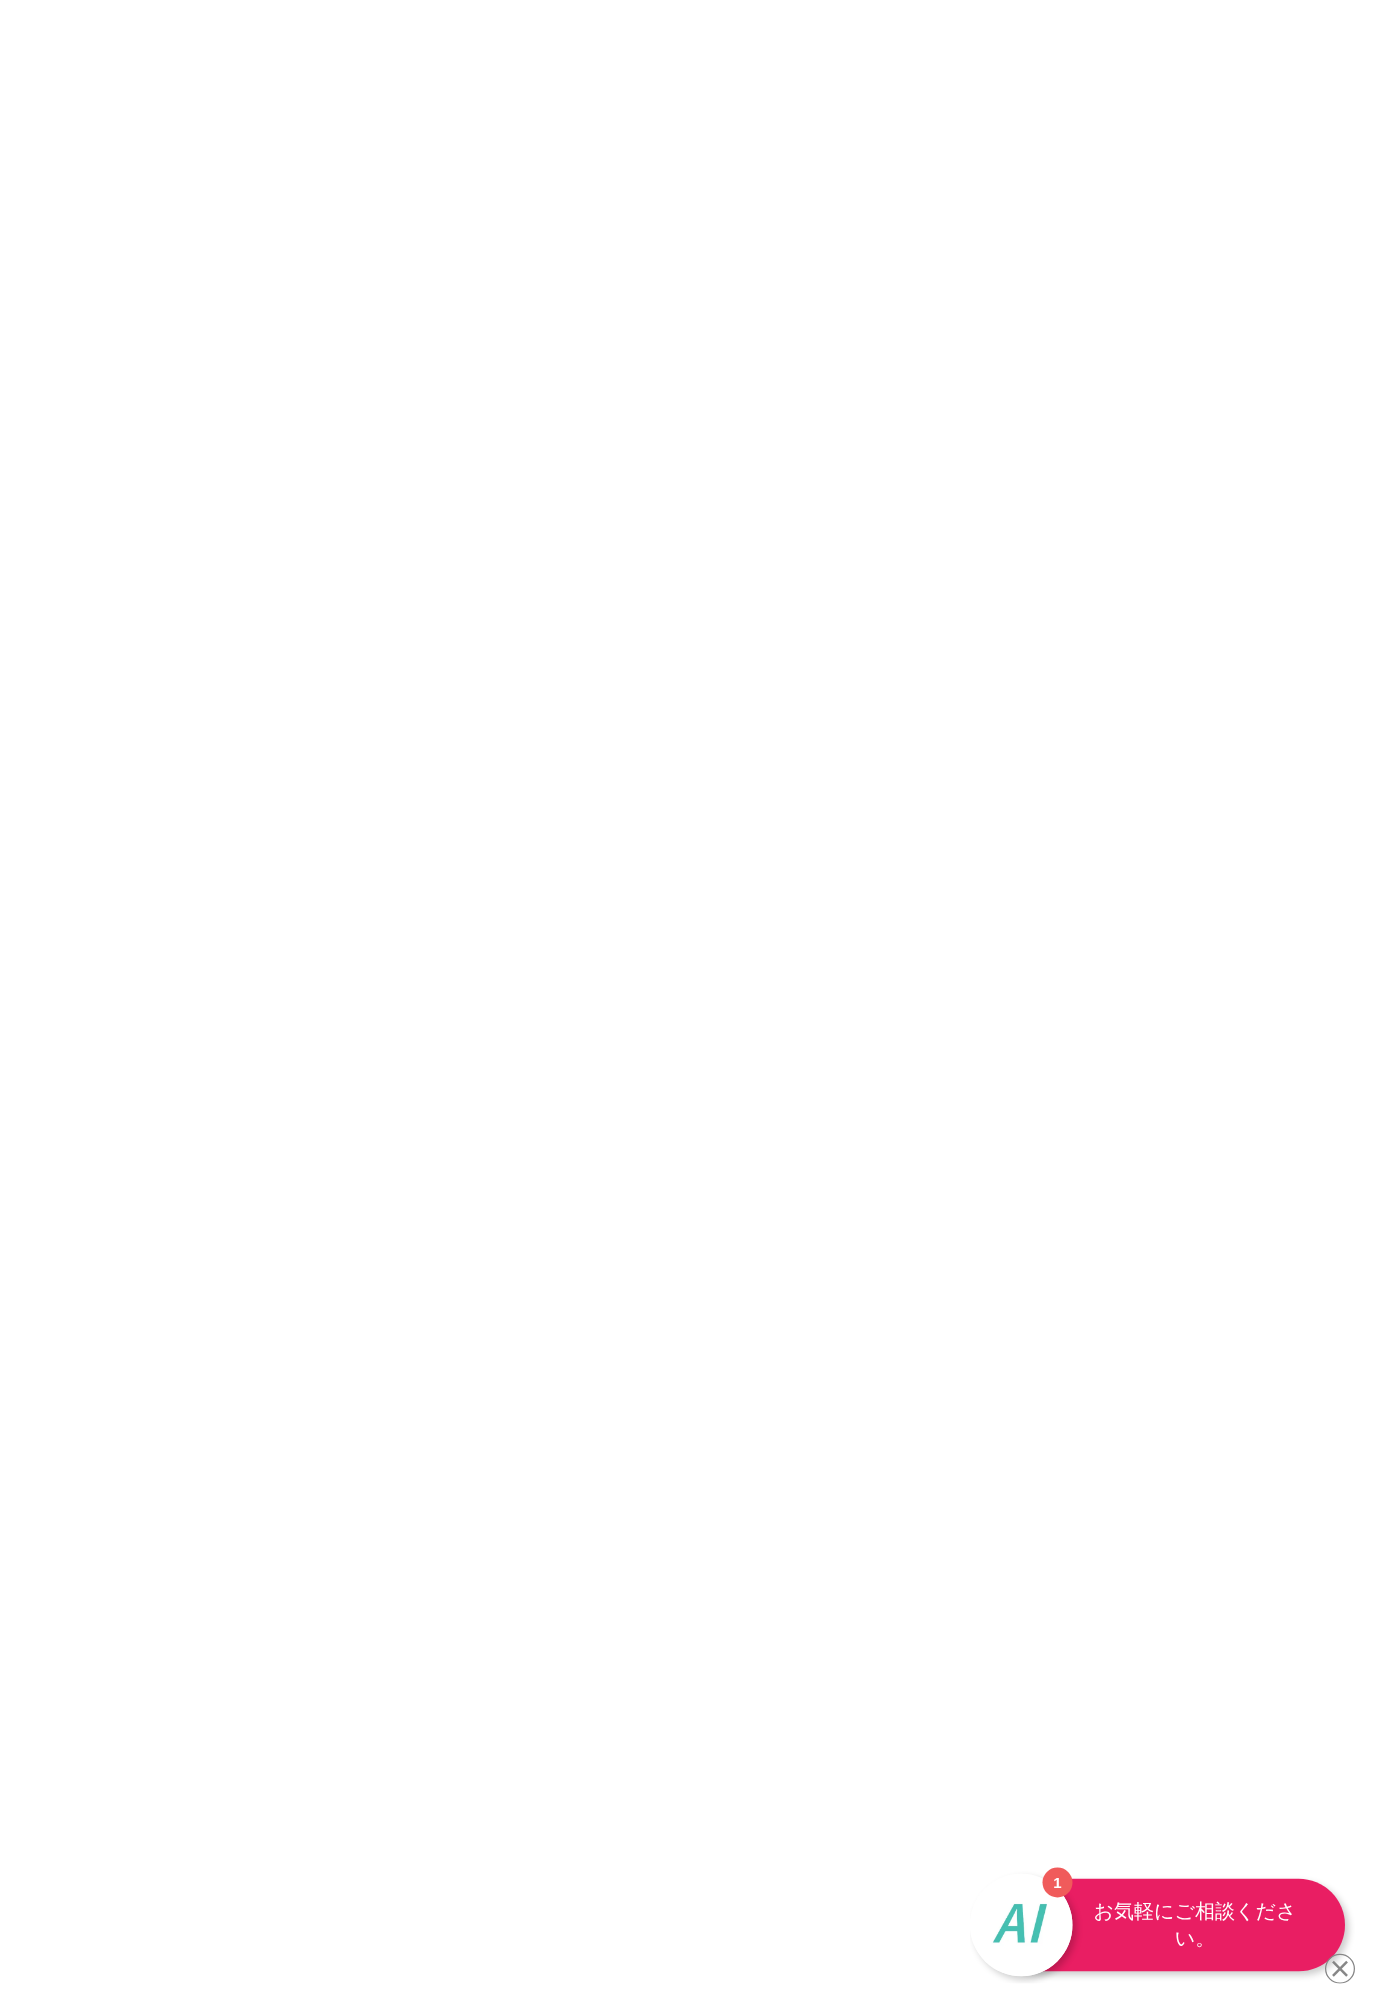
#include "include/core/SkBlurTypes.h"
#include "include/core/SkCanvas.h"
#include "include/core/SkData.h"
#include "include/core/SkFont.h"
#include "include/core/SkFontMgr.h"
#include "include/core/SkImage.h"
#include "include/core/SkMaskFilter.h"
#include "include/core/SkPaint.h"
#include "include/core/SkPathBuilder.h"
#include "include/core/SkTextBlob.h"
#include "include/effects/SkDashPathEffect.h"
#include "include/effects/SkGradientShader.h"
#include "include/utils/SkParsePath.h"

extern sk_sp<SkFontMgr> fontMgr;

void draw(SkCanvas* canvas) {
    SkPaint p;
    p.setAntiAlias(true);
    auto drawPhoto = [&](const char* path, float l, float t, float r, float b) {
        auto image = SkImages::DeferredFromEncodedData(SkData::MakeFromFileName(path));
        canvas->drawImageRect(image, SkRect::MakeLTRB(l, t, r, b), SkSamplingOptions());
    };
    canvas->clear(0xFFFFFFFF);
    drawPhoto("media/1.png", 970, 1867, 1355, 1984);
}
